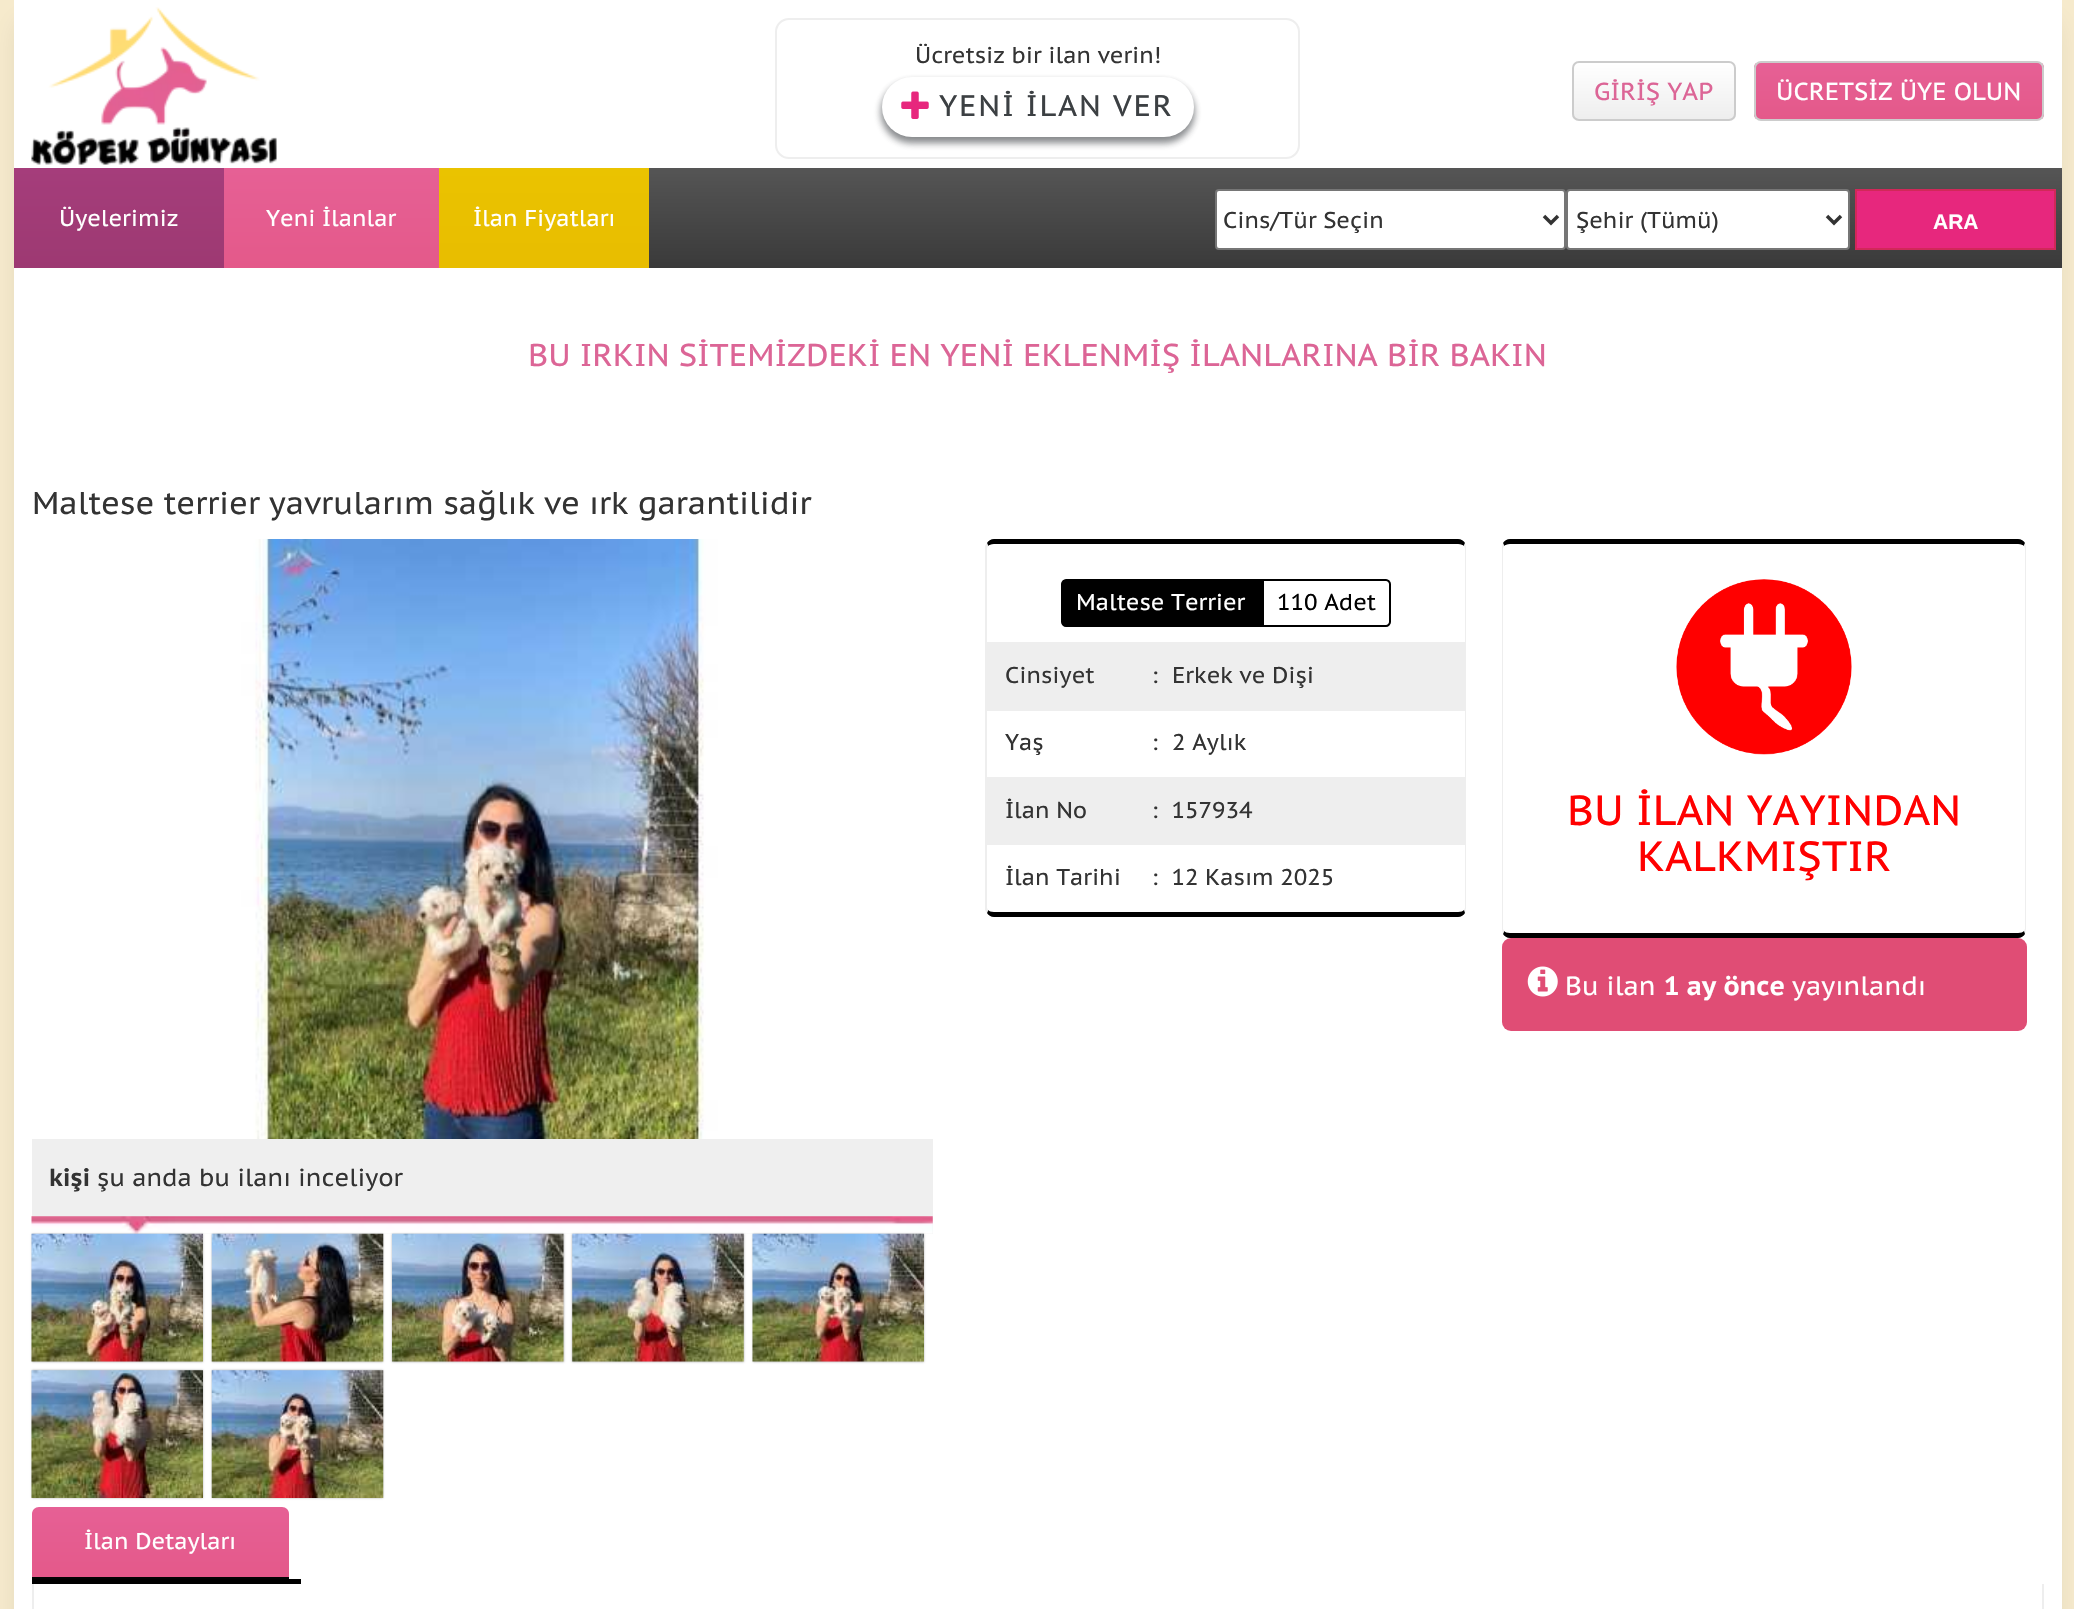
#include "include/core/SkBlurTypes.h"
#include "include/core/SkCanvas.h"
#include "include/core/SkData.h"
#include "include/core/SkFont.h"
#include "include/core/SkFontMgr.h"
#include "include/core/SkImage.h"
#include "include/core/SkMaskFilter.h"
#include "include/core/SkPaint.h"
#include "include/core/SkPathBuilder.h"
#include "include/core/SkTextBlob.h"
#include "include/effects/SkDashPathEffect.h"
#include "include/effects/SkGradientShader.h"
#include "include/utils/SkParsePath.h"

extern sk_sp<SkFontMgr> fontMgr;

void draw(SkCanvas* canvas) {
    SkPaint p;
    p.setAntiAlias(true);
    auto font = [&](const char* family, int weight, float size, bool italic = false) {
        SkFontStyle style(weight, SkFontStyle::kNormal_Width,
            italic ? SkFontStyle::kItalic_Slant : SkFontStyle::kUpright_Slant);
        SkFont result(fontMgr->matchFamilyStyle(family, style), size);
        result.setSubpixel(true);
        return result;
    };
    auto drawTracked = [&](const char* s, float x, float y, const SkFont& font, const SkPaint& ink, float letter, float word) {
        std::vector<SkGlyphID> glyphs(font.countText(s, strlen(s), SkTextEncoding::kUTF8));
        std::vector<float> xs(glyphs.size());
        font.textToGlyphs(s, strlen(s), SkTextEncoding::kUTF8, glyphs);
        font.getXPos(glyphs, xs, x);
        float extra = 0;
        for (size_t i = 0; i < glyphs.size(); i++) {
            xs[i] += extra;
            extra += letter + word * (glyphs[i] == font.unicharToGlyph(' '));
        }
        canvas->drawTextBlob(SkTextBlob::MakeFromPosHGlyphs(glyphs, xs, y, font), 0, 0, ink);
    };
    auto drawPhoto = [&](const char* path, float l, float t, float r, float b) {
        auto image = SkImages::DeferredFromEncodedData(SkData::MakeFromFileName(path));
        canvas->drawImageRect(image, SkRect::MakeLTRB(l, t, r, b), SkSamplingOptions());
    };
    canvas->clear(0xFFF7EBCD);
    p.setColor(0x1A000000);
    p.setMaskFilter(SkMaskFilter::MakeBlur(kNormal_SkBlurStyle, 13));
    canvas->drawRect(SkRect::MakeLTRB(19, 23, 2056, 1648), p);
    p.setMaskFilter(nullptr);
    p.setColor(0xFFFFFFFF);
    canvas->drawRect(SkRect::MakeLTRB(14, 0, 2062, 168), p);
    drawPhoto("media/1.png", 31, 7, 277, 165);
    p.setStyle(SkPaint::kStroke_Style);
    p.setStrokeWidth(2);
    p.setColor(0xFFEEEEEE);
    canvas->drawRoundRect(SkRect::MakeLTRB(776, 19, 1299, 158), 13, 13, p);
    auto font1 = font("PT Sans Caption", 400, 22.75f);
    p.setStyle(SkPaint::kFill_Style);
    p.setColor(0xFF333333);
    canvas->drawString("Ücretsiz bir ilan verin!", 915, 63, font1, p);
    p.setColor(0x403C4043);
    p.setMaskFilter(SkMaskFilter::MakeBlur(kNormal_SkBlurStyle, 3.5f));
    canvas->drawRoundRect(SkRect::MakeLTRB(880, 81, 1195, 144), 31.5f, 31.5f, p);
    p.setMaskFilter(nullptr);
    p.setColor(0x803C4043);
    p.setMaskFilter(SkMaskFilter::MakeBlur(kNormal_SkBlurStyle, 3.5f));
    canvas->drawRoundRect(SkRect::MakeLTRB(882, 82, 1194, 142), 30, 30, p);
    p.setMaskFilter(nullptr);
    p.setColor(0xFFFFFFFF);
    canvas->drawRoundRect(SkRect::MakeLTRB(882, 77, 1194, 137), 30, 30, p);
    drawPhoto("media/2.png", 901, 91, 929, 119);
    auto font2 = font("PT Sans Caption", 400, 29.75f);
    p.setColor(0xFF3C4043);
    drawTracked("YENİ İLAN VER", 939, 116, font2, p, 1.75f, 0);
    canvas->save();
    canvas->clipPath(SkPathBuilder().moveTo(1579, 61).lineTo(1729, 61).cubicTo(1733, 61, 1736, 64, 1736, 68).lineTo(1736, 114).cubicTo(1736, 118, 1733, 121, 1729, 121).lineTo(1579, 121).cubicTo(1575, 121, 1572, 118, 1572, 114).lineTo(1572, 68).cubicTo(1572, 64, 1575, 61, 1579, 61).close().detach(), true);
    {
        const SkColor colors[] = {0xFFFFFFFF, 0xFFEEEEEE};
        const float stops[] = {0, 1};
        const SkPoint ends[] = {{1654, 63}, {1654, 119}};
        p.setShader(SkGradientShader::MakeLinear(ends, colors, stops, 2, SkTileMode::kClamp));
        p.setAlpha(255);
    }
    canvas->drawRect(SkRect::MakeLTRB(1572, 63, 1736, 119), p);
    canvas->restore();
    p.setStyle(SkPaint::kStroke_Style);
    p.setShader(nullptr);
    p.setColor(0xFFCCCCCC);
    canvas->drawRoundRect(SkRect::MakeLTRB(1573, 62, 1735, 120), 6, 6, p);
    auto font3 = font("PT Sans Caption", 400, 24.5f);
    p.setStyle(SkPaint::kFill_Style);
    p.setColor(0xFFDC6596);
    canvas->drawString("GİRİŞ YAP", 1594, 100, font3, p);
    canvas->save();
    canvas->clipPath(SkPathBuilder().moveTo(1761, 61).lineTo(2037, 61).cubicTo(2041, 61, 2044, 64, 2044, 68).lineTo(2044, 114).cubicTo(2044, 118, 2041, 121, 2037, 121).lineTo(1761, 121).cubicTo(1757, 121, 1754, 118, 1754, 114).lineTo(1754, 68).cubicTo(1754, 64, 1757, 61, 1761, 61).close().detach(), true);
    {
        const SkColor colors[] = {0xFFE66095, 0xFFE4598A};
        const float stops[] = {0, 1};
        const SkPoint ends[] = {{1899, 63}, {1899, 119}};
        p.setShader(SkGradientShader::MakeLinear(ends, colors, stops, 2, SkTileMode::kClamp));
        p.setAlpha(255);
    }
    canvas->drawRect(SkRect::MakeLTRB(1754, 63, 2044, 119), p);
    canvas->restore();
    p.setStyle(SkPaint::kStroke_Style);
    p.setShader(nullptr);
    p.setColor(0xFFCCCCCC);
    canvas->drawRoundRect(SkRect::MakeLTRB(1755, 62, 2043, 120), 6, 6, p);
    p.setStyle(SkPaint::kFill_Style);
    p.setColor(0xFFFFFFFF);
    canvas->drawString("ÜCRETSİZ ÜYE OLUN", 1776, 100, font3, p);
    {
        const SkColor colors[] = {0xFFA53D7B, 0xFF9D3972};
        const float stops[] = {0, 1};
        const SkPoint ends[] = {{119, 168}, {119, 268}};
        p.setShader(SkGradientShader::MakeLinear(ends, colors, stops, 2, SkTileMode::kClamp));
        p.setAlpha(255);
    }
    canvas->drawRect(SkRect::MakeLTRB(14, 168, 224, 268), p);
    p.setShader(nullptr);
    p.setColor(0xFFFFFFFF);
    canvas->drawString("Üyelerimiz", 59, 226, font1, p);
    {
        const SkColor colors[] = {0xFFE66095, 0xFFE4598A};
        const float stops[] = {0, 1};
        const SkPoint ends[] = {{332, 168}, {332, 268}};
        p.setShader(SkGradientShader::MakeLinear(ends, colors, stops, 2, SkTileMode::kClamp));
        p.setAlpha(255);
    }
    canvas->drawRect(SkRect::MakeLTRB(224, 168, 439, 268), p);
    p.setShader(nullptr);
    p.setColor(0xFFFFFFFF);
    canvas->drawString("Yeni İlanlar", 266, 226, font1, p);
    {
        const SkColor colors[] = {0xFFEAC300, 0xFFE8BD00};
        const float stops[] = {0, 1};
        const SkPoint ends[] = {{544, 168}, {544, 268}};
        p.setShader(SkGradientShader::MakeLinear(ends, colors, stops, 2, SkTileMode::kClamp));
        p.setAlpha(255);
    }
    canvas->drawRect(SkRect::MakeLTRB(439, 168, 649, 268), p);
    p.setShader(nullptr);
    p.setColor(0xFFFFFFFF);
    canvas->drawString("İlan Fiyatları", 473, 226, font1, p);
    {
        const SkColor colors[] = {0xFF555555, 0xFF3A3A3A};
        const float stops[] = {0, 1};
        const SkPoint ends[] = {{1355, 168}, {1355, 268}};
        p.setShader(SkGradientShader::MakeLinear(ends, colors, stops, 2, SkTileMode::kClamp));
        p.setAlpha(255);
    }
    canvas->drawRect(SkRect::MakeLTRB(649, 168, 2062, 268), p);
    p.setShader(nullptr);
    p.setColor(0xFFFFFFFF);
    canvas->drawRoundRect(SkRect::MakeLTRB(1216, 190, 1565, 249), 3, 3, p);
    p.setStyle(SkPaint::kStroke_Style);
    p.setColor(0xFF767676);
    canvas->drawRoundRect(SkRect::MakeLTRB(1216, 190, 1565, 249), 3, 3, p);
    p.setStrokeWidth(3.5f);
    p.setColor(0xFF333333);
    canvas->drawPath(SkPathBuilder().moveTo(1544, 216).lineTo(1551, 223).lineTo(1558, 216).detach(), p);
    p.setStyle(SkPaint::kFill_Style);
    canvas->drawString("Cins/Tür Seçin", 1223, 228, font1, p);
    p.setColor(0xFFFFFFFF);
    canvas->drawRoundRect(SkRect::MakeLTRB(1567, 190, 1849, 249), 3, 3, p);
    p.setStyle(SkPaint::kStroke_Style);
    p.setStrokeWidth(2);
    p.setColor(0xFF767676);
    canvas->drawRoundRect(SkRect::MakeLTRB(1567, 190, 1849, 249), 3, 3, p);
    p.setStrokeWidth(3.5f);
    p.setColor(0xFF333333);
    canvas->drawPath(SkPathBuilder().moveTo(1827, 216).lineTo(1834, 223).lineTo(1841, 216).detach(), p);
    p.setStyle(SkPaint::kFill_Style);
    canvas->drawString("Şehir (Tümü)", 1576, 228, font1, p);
    p.setColor(0xFFE7277D);
    canvas->drawRect(SkRect::MakeLTRB(1856, 190, 2055, 249), p);
    p.setStyle(SkPaint::kStroke_Style);
    p.setStrokeWidth(2);
    p.setColor(0xFFD12859);
    canvas->drawRect(SkRect::MakeLTRB(1856, 190, 2055, 249), p);
    auto font4 = font("Liberation Sans", 700, 21);
    p.setStyle(SkPaint::kFill_Style);
    p.setColor(0xFFFFFFFF);
    canvas->drawString("ARA", 1933, 229, font4, p);
    canvas->drawRect(SkRect::MakeLTRB(14, 268, 2062, 1609), p);
    auto font5 = font("PT Sans Caption", 400, 31.5f);
    p.setColor(0xFFDC6596);
    canvas->drawString("BU IRKIN SİTEMİZDEKİ EN YENİ EKLENMİŞ İLANLARINA BİR BAKIN", 528, 366, font5, p);
    p.setColor(0xFF333333);
    canvas->drawString("Maltese terrier yavrularım sağlık ve ırk garantilidir", 32, 514, font5, p);
    p.setColor(0xFF000000);
    canvas->drawPath(SkPathBuilder().moveTo(994, 539).cubicTo(991, 539, 988, 541, 987, 543).lineTo(988, 546).cubicTo(989, 545, 991, 544, 994, 544).lineTo(1458, 544).cubicTo(1461, 544, 1463, 545, 1464, 546).lineTo(1465, 543).cubicTo(1464, 541, 1461, 539, 1458, 539).close().detach(), p);
    p.setColor(0xFFEEEEEE);
    canvas->drawPath(SkPathBuilder().moveTo(1465, 543).lineTo(1466, 547).lineTo(1466, 848).lineTo(1466, 908).lineTo(1465, 913).lineTo(1464, 910).lineTo(1465, 908).lineTo(1465, 548).lineTo(1464, 546).close().detach(), p);
    p.setColor(0xFF000000);
    canvas->drawPath(SkPathBuilder().moveTo(994, 917).lineTo(1458, 917).cubicTo(1461, 917, 1464, 915, 1465, 913).lineTo(1464, 910).cubicTo(1463, 911, 1461, 912, 1458, 912).lineTo(994, 912).cubicTo(991, 912, 989, 911, 988, 910).lineTo(987, 913).cubicTo(988, 915, 991, 917, 994, 917).close().detach(), p);
    p.setColor(0xFFEEEEEE);
    canvas->drawPath(SkPathBuilder().moveTo(985, 546).lineTo(987, 543).lineTo(988, 546).lineTo(987, 548).lineTo(987, 908).lineTo(988, 910).lineTo(987, 913).lineTo(985, 910).close().detach(), p);
    p.setColor(0xFF000000);
    canvas->drawPath(SkPathBuilder().moveTo(1066, 580).lineTo(1261, 580).lineTo(1261, 626).lineTo(1066, 626).cubicTo(1064, 626, 1062, 624, 1062, 622).lineTo(1062, 584).cubicTo(1062, 582, 1064, 580, 1066, 580).close().detach(), p);
    p.setStyle(SkPaint::kStroke_Style);
    canvas->drawPath(SkPathBuilder().moveTo(1066, 580).lineTo(1261, 580).lineTo(1261, 626).lineTo(1066, 626).cubicTo(1064, 626, 1062, 624, 1062, 622).lineTo(1062, 584).cubicTo(1062, 582, 1064, 580, 1066, 580).close().detach(), p);
    p.setStyle(SkPaint::kFill_Style);
    p.setColor(0xFFFFFFFF);
    canvas->drawString("Maltese Terrier", 1076, 610, font1, p);
    p.setStyle(SkPaint::kStroke_Style);
    p.setColor(0xFF000000);
    canvas->drawPath(SkPathBuilder().moveTo(1263, 580).lineTo(1386, 580).cubicTo(1388, 580, 1390, 582, 1390, 584).lineTo(1390, 622).cubicTo(1390, 624, 1388, 626, 1386, 626).lineTo(1263, 626).close().detach(), p);
    p.setStyle(SkPaint::kFill_Style);
    canvas->drawString("110 Adet", 1277, 610, font1, p);
    p.setColor(0xFFEEEEEE);
    canvas->drawRect(SkRect::MakeLTRB(987, 642, 1465, 711), p);
    p.setColor(0xFF333333);
    {
        const struct { const char* s; float x, y; } items[] = {
            {"Cinsiyet", 1005, 683},
            {":", 1152, 683},
            {"Erkek ve Dişi", 1172, 683},
            {"Yaş", 1005, 750},
            {":", 1152, 750},
            {"2 Aylık", 1172, 750},
        };
        for (auto [s, x, y] : items) {
            canvas->drawString(s, x, y, font1, p);
        }
    }
    p.setColor(0xFFEEEEEE);
    canvas->drawRect(SkRect::MakeLTRB(987, 777, 1465, 845), p);
    p.setColor(0xFF333333);
    {
        const struct { const char* s; float x, y; } items[] = {
            {"İlan No", 1005, 818},
            {":  157934", 1152, 818},
            {"İlan Tarihi", 1005, 885},
            {":  12 Kasım 2025", 1152, 885},
        };
        for (auto [s, x, y] : items) {
            canvas->drawString(s, x, y, font1, p);
        }
    }
    p.setColor(0xFF000000);
    canvas->drawPath(SkPathBuilder().moveTo(1510, 539).cubicTo(1507, 539, 1504, 541, 1503, 543).lineTo(1504, 546).cubicTo(1505, 545, 1507, 544, 1510, 544).lineTo(2018, 544).cubicTo(2021, 544, 2023, 545, 2024, 546).lineTo(2025, 543).cubicTo(2024, 541, 2021, 539, 2018, 539).close().detach(), p);
    p.setColor(0xFFEEEEEE);
    canvas->drawPath(SkPathBuilder().moveTo(2025, 543).lineTo(2026, 547).lineTo(2026, 866).lineTo(2026, 929).lineTo(2025, 934).lineTo(2024, 931).lineTo(2025, 929).lineTo(2025, 548).lineTo(2024, 546).close().detach(), p);
    p.setColor(0xFF000000);
    canvas->drawPath(SkPathBuilder().moveTo(1510, 938).lineTo(2018, 938).cubicTo(2021, 938, 2024, 936, 2025, 934).lineTo(2024, 931).cubicTo(2023, 932, 2021, 933, 2018, 933).lineTo(1510, 933).cubicTo(1507, 933, 1505, 932, 1504, 931).lineTo(1503, 934).cubicTo(1504, 936, 1507, 938, 1510, 938).close().detach(), p);
    p.setColor(0xFFEEEEEE);
    canvas->drawPath(SkPathBuilder().moveTo(1503, 543).lineTo(1502, 547).lineTo(1502, 866).lineTo(1502, 929).lineTo(1503, 934).lineTo(1504, 931).lineTo(1503, 929).lineTo(1503, 548).lineTo(1504, 546).close().detach(), p);
    drawPhoto("media/3.png", 1676, 579, 1852, 755);
    auto font6 = font("PT Sans Caption", 400, 42);
    p.setColor(0xFFFF0000);
    canvas->drawString("BU İLAN YAYINDAN", 1567, 825, font6, p);
    canvas->drawString("KALKMIŞTIR", 1637, 871, font6, p);
    p.setColor(0xFFE04D75);
    canvas->drawRoundRect(SkRect::MakeLTRB(1502, 938, 2027, 1031), 9, 9, p);
    drawPhoto("media/4.png", 1527, 966, 1558, 997);
    auto font7 = font("PT Sans Caption", 400, 26.25f);
    p.setColor(0xFFFFFFFF);
    canvas->drawString("Bu ilan", 1565, 995, font7, p);
    auto font8 = font("PT Sans Caption", 700, 26.25f);
    canvas->drawString("1 ay önce", 1664, 995, font8, p);
    canvas->drawString("yayınlandı", 1792, 995, font7, p);
    p.setColor(0xFFEEEEEE);
    canvas->drawRect(SkRect::MakeLTRB(32, 1216, 933, 1234), p);
    drawPhoto("media/5.png", 31, 1216, 933, 1234);
    drawPhoto("media/6.png", 32, 539, 933, 1139);
    p.setColor(0xFFEFEFEF);
    canvas->drawRect(SkRect::MakeLTRB(32, 1139, 933, 1216), p);
    auto font9 = font("PT Sans Caption", 700, 24.5f);
    p.setColor(0xFF333333);
    canvas->drawString("kişi", 49, 1186, font9, p);
    canvas->drawString("şu anda bu ilanı inceliyor", 97, 1186, font3, p);
    p.setColor(0x4D000000);
    p.setMaskFilter(SkMaskFilter::MakeBlur(kNormal_SkBlurStyle, 1));
    canvas->drawRect(SkRect::MakeLTRB(32, 1234, 203, 1362), p);
    p.setMaskFilter(nullptr);
    drawPhoto("media/7.png", 31, 1233, 203, 1362);
    p.setMaskFilter(SkMaskFilter::MakeBlur(kNormal_SkBlurStyle, 1));
    canvas->drawRect(SkRect::MakeLTRB(212, 1234, 383, 1362), p);
    p.setMaskFilter(nullptr);
    drawPhoto("media/8.png", 211, 1233, 384, 1362);
    p.setMaskFilter(SkMaskFilter::MakeBlur(kNormal_SkBlurStyle, 1));
    canvas->drawRect(SkRect::MakeLTRB(392, 1234, 564, 1362), p);
    p.setMaskFilter(nullptr);
    drawPhoto("media/9.png", 392, 1233, 564, 1362);
    p.setMaskFilter(SkMaskFilter::MakeBlur(kNormal_SkBlurStyle, 1));
    canvas->drawRect(SkRect::MakeLTRB(572, 1234, 744, 1362), p);
    p.setMaskFilter(nullptr);
    drawPhoto("media/10.png", 572, 1233, 744, 1362);
    p.setMaskFilter(SkMaskFilter::MakeBlur(kNormal_SkBlurStyle, 1));
    canvas->drawRect(SkRect::MakeLTRB(753, 1234, 924, 1362), p);
    p.setMaskFilter(nullptr);
    drawPhoto("media/11.png", 752, 1233, 924, 1362);
    p.setMaskFilter(SkMaskFilter::MakeBlur(kNormal_SkBlurStyle, 1));
    canvas->drawRect(SkRect::MakeLTRB(32, 1370, 203, 1498), p);
    p.setMaskFilter(nullptr);
    drawPhoto("media/12.png", 31, 1370, 203, 1498);
    p.setMaskFilter(SkMaskFilter::MakeBlur(kNormal_SkBlurStyle, 1));
    canvas->drawRect(SkRect::MakeLTRB(212, 1370, 383, 1498), p);
    p.setMaskFilter(nullptr);
    drawPhoto("media/13.png", 211, 1370, 384, 1498);
    p.setColor(0xFF000000);
    canvas->drawRect(SkRect::MakeLTRB(32, 1579, 301, 1584), p);
    {
        const SkColor colors[] = {0xFFE66095, 0xFFE4598A};
        const float stops[] = {0, 1};
        const SkPoint ends[] = {{160, 1507}, {160, 1577}};
        p.setShader(SkGradientShader::MakeLinear(ends, colors, stops, 2, SkTileMode::kClamp));
        p.setAlpha(255);
    }
    canvas->drawPath(SkPathBuilder().moveTo(39, 1507).lineTo(282, 1507).cubicTo(286, 1507, 289, 1510, 289, 1514).lineTo(289, 1577).lineTo(32, 1577).lineTo(32, 1514).cubicTo(32, 1510, 35, 1507, 39, 1507).close().detach(), p);
    p.setShader(nullptr);
    p.setColor(0xFF030303);
    canvas->drawRect(SkRect::MakeLTRB(32, 1577, 289, 1579), p);
    p.setColor(0xFFFFFFFF);
    canvas->drawString("İlan Detayları", 84, 1549, font1, p);
    p.setColor(0xFFEEEEEE);
    canvas->drawRect(SkRect::MakeLTRB(2042, 1584, 2044, 1609), p);
    canvas->drawRect(SkRect::MakeLTRB(32, 1584, 34, 1609), p);
}
